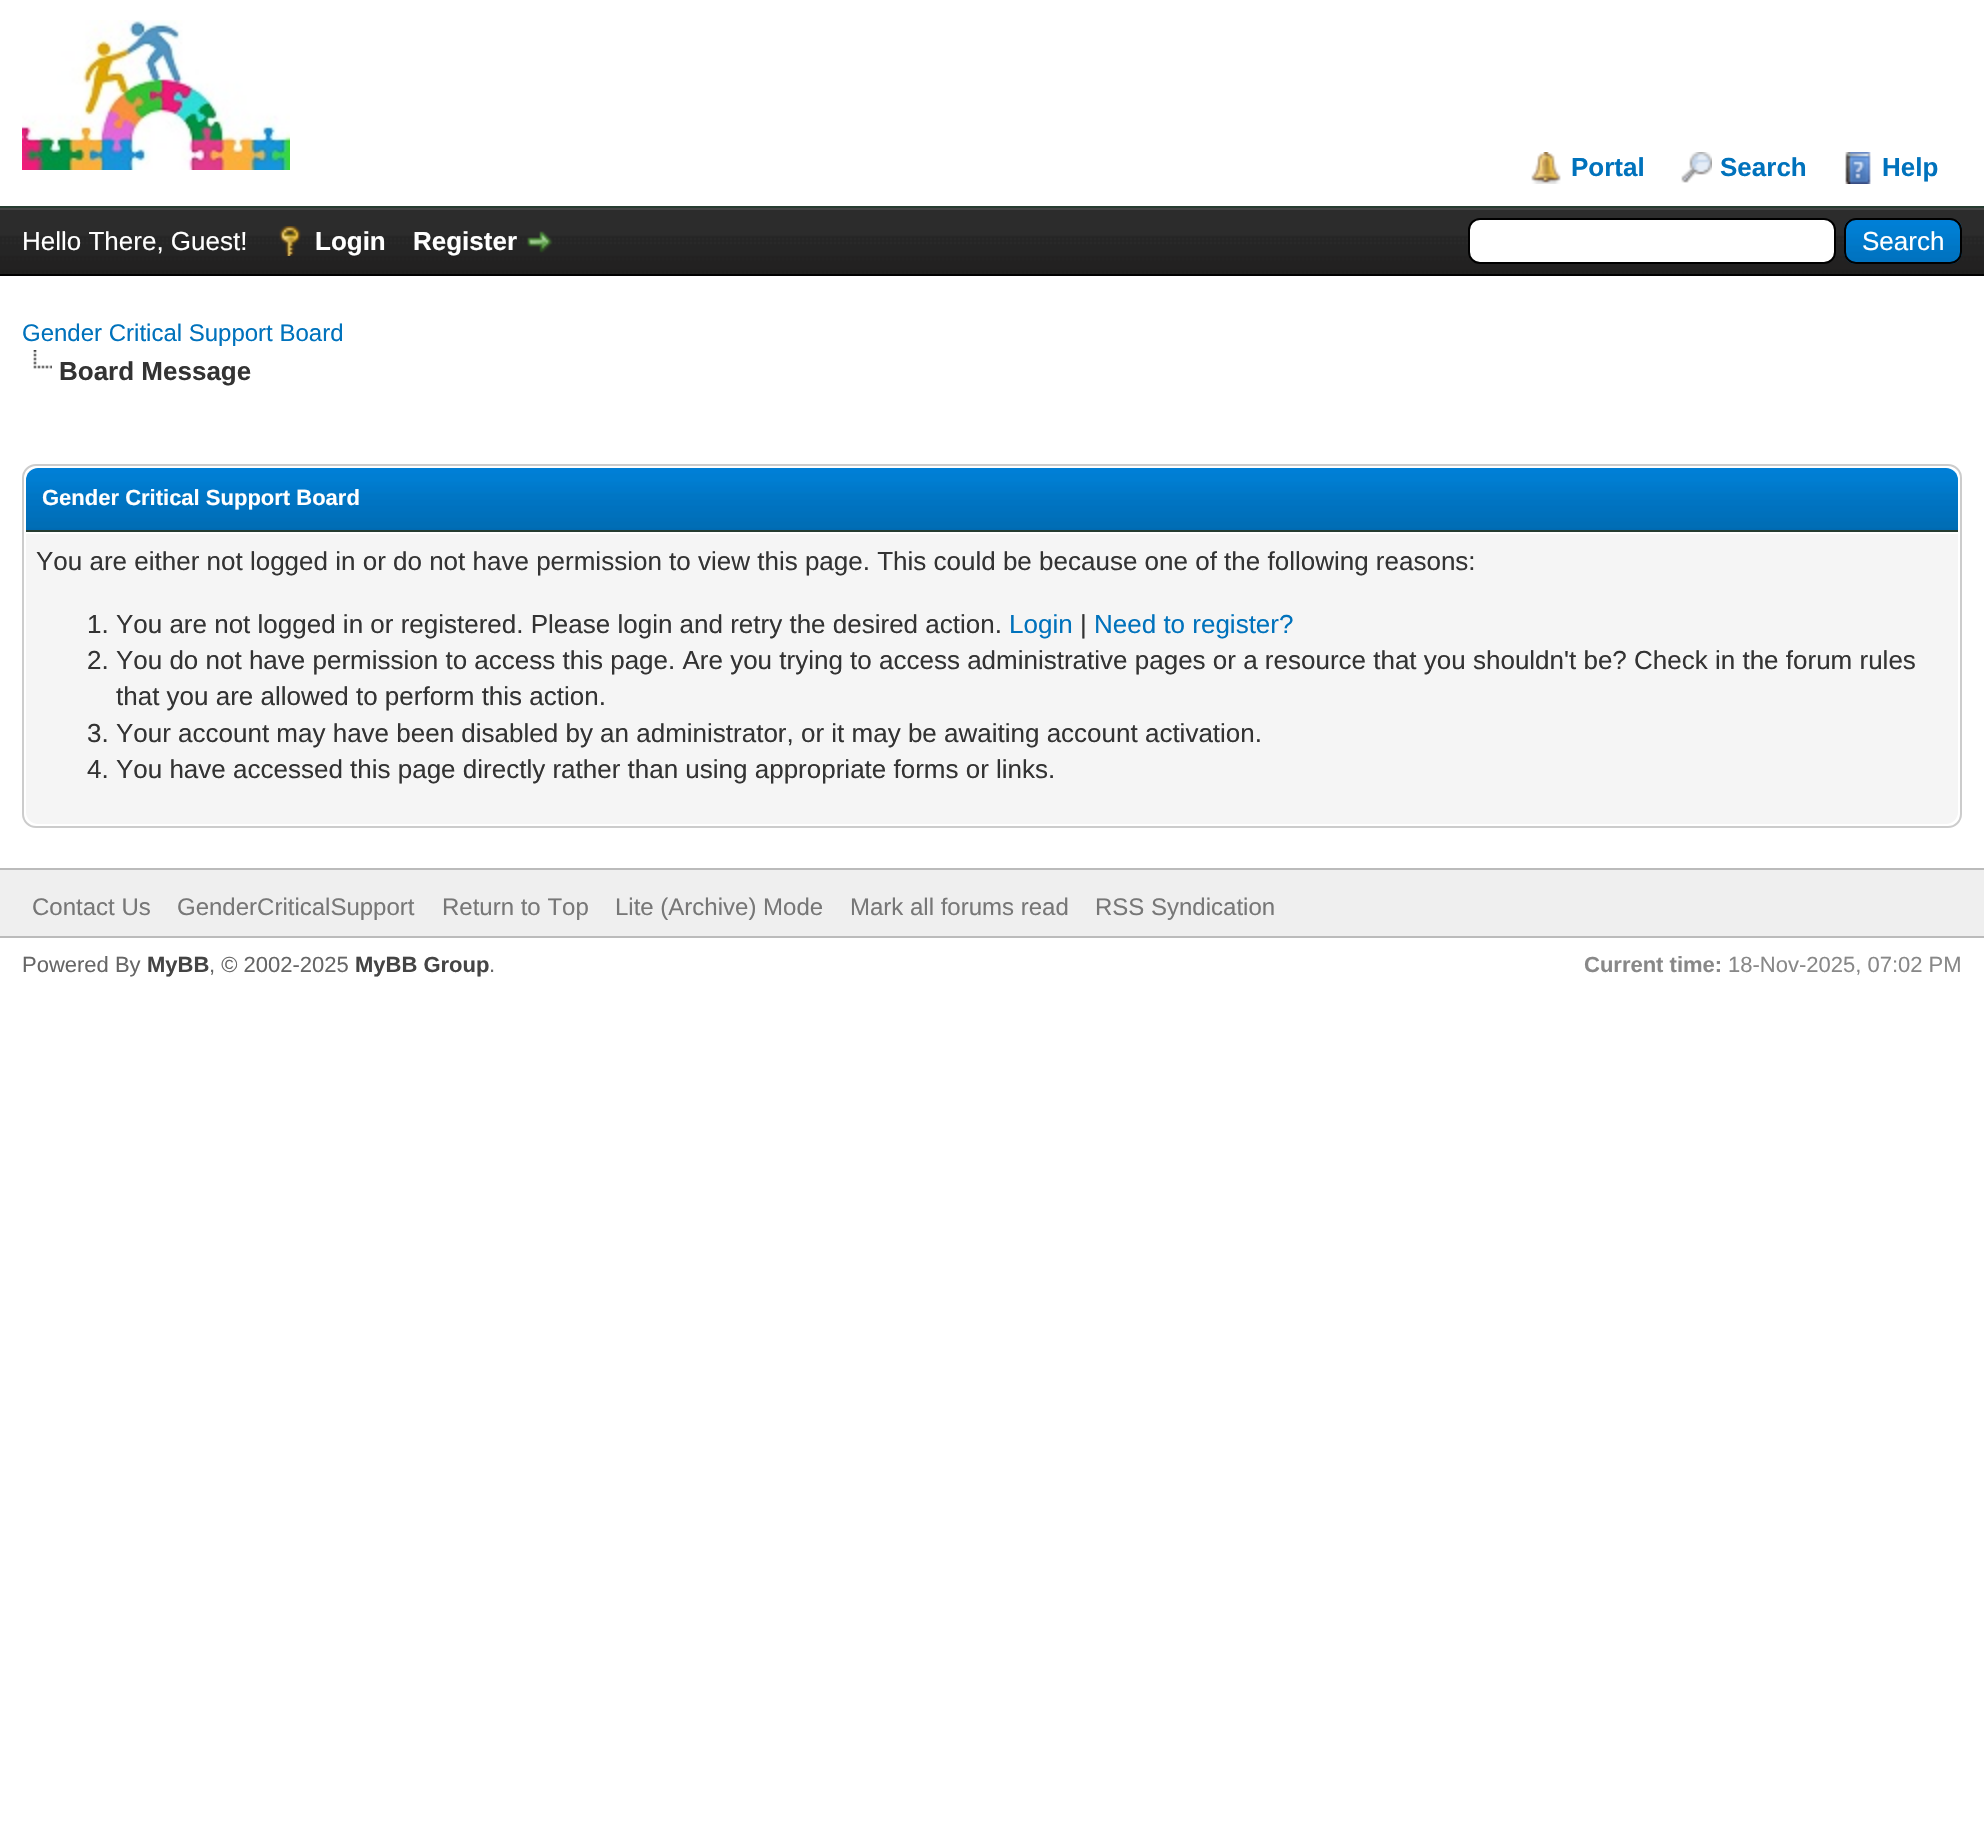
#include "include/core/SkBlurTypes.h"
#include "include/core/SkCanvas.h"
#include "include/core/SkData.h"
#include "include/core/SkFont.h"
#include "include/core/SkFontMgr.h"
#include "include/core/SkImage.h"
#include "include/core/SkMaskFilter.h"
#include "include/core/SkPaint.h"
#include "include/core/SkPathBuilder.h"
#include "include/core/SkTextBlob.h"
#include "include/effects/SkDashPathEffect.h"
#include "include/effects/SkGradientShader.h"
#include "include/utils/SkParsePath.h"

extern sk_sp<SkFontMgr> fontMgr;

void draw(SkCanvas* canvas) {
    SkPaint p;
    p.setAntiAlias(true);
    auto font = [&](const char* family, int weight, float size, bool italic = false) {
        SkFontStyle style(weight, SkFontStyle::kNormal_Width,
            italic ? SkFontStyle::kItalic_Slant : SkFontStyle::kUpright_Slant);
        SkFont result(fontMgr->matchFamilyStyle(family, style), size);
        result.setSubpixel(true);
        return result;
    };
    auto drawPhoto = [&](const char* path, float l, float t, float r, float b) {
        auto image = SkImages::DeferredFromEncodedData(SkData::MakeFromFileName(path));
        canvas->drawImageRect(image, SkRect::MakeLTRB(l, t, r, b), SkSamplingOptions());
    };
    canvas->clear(0xFFFFFFFF);
    p.setColor(0xFF263C30);
    canvas->drawRect(SkRect::MakeLTRB(0, 206, 1984, 208), p);
    drawPhoto("media/1.png", 22, 20, 290, 170);
    drawPhoto("media/2.png", 1531, 152, 1561, 184);
    auto font1 = font("Liberation Sans", 700, 26);
    p.setColor(0xFF0072BC);
    canvas->drawString("Portal", 1571, 176, font1, p);
    drawPhoto("media/3.png", 1681, 152, 1712, 183);
    canvas->drawString("Search", 1720, 176, font1, p);
    drawPhoto("media/4.png", 1845, 152, 1871, 184);
    canvas->drawString("Help", 1882, 176, font1, p);
    drawPhoto("media/5.png", 0, 210, 1984, 274);
    p.setColor(0xFF444444);
    canvas->drawRect(SkRect::MakeLTRB(0, 208, 1984, 210), p);
    p.setColor(0xFF000000);
    canvas->drawRect(SkRect::MakeLTRB(0, 274, 1984, 276), p);
    auto font2 = font("Liberation Sans", 400, 26);
    p.setColor(0xFFFFFFFF);
    canvas->drawString("Hello There, Guest!", 22, 250, font2, p);
    drawPhoto("media/6.png", 279, 226, 301, 256);
    canvas->drawString("Login", 315, 250, font1, p);
    canvas->drawString("Register", 413, 250, font1, p);
    drawPhoto("media/7.png", 527, 231, 553, 253);
    canvas->drawRoundRect(SkRect::MakeLTRB(1469, 219, 1835, 263), 11, 11, p);
    p.setStyle(SkPaint::kStroke_Style);
    p.setStrokeWidth(2);
    p.setColor(0xFF000000);
    canvas->drawRoundRect(SkRect::MakeLTRB(1469, 219, 1835, 263), 11, 11, p);
    drawPhoto("media/8.png", 1844, 220, 1962, 264);
    canvas->drawRoundRect(SkRect::MakeLTRB(1845, 219, 1961, 263), 11, 11, p);
    p.setStyle(SkPaint::kFill_Style);
    p.setColor(0xFFFFFFFF);
    canvas->drawString("Search", 1862, 250, font2, p);
    auto font3 = font("Liberation Sans", 400, 24);
    p.setColor(0xFF0072BC);
    canvas->drawString("Gender Critical Support Board", 22, 341, font3, p);
    drawPhoto("media/9.png", 33, 350, 52, 369);
    p.setColor(0xFF333333);
    canvas->drawString("Board Message", 59, 380, font1, p);
    p.setStyle(SkPaint::kStroke_Style);
    p.setColor(0xFFCCCCCC);
    canvas->drawRoundRect(SkRect::MakeLTRB(23, 465, 1961, 827), 13, 13, p);
    drawPhoto("media/10.png", 26, 468, 1958, 530);
    p.setStyle(SkPaint::kFill_Style);
    p.setColor(0xFF263C30);
    canvas->drawRect(SkRect::MakeLTRB(26, 530, 1958, 532), p);
    auto font4 = font("Liberation Sans", 700, 22);
    p.setColor(0xFFFFFFFF);
    canvas->drawString("Gender Critical Support Board", 42, 505, font4, p);
    p.setColor(0xFFF5F5F5);
    canvas->drawPath(SkPathBuilder().moveTo(26, 532).lineTo(1958, 532).lineTo(1958, 812).cubicTo(1958, 818.5f, 1952.5f, 824, 1946, 824).lineTo(38, 824).cubicTo(31.5f, 824, 26, 818.5f, 26, 812).close().detach(), p);
    p.setColor(0xFFFFFFFF);
    canvas->drawRect(SkRect::MakeLTRB(26, 532, 1958, 534), p);
    p.setColor(0xFF333333);
    canvas->drawString("You are either not logged in or do not have permission to view this page. This could be because one of the following reasons:", 36, 570, font2, p);
    canvas->drawString("1. You are not logged in or registered. Please login and retry the desired action.", 87, 633, font2, p);
    p.setColor(0xFF0072BC);
    canvas->drawString("Login", 1009, 633, font2, p);
    p.setColor(0xFF333333);
    canvas->drawString("|", 1080, 633, font2, p);
    p.setColor(0xFF0072BC);
    canvas->drawString("Need to register?", 1094, 633, font2, p);
    p.setColor(0xFF333333);
    {
        const struct { const char* s; float x, y; } items[] = {
            {"2. You do not have permission to access this page. Are you trying to access administrative pages or a resource that you shouldn't be? Check in the forum rules", 87, 669},
            {"that you are allowed to perform this action.", 116, 705},
            {"3. Your account may have been disabled by an administrator, or it may be awaiting account activation.", 87, 742},
            {"4. You have accessed this page directly rather than using appropriate forms or links.", 87, 778},
        };
        for (auto [s, x, y] : items) {
            canvas->drawString(s, x, y, font2, p);
        }
    }
    {
        const struct { float l, t, r, b; SkColor color; } items[] = {
            {0, 870, 1984, 936, 0xFFEFEFEF},
            {0, 868, 1984, 870, 0xFFBBBBBB},
            {0, 936, 1984, 938, 0xFFBBBBBB},
        };
        for (auto [l, t, r, b, color] : items) {
            p.setColor(color);
            canvas->drawRect(SkRect::MakeLTRB(l, t, r, b), p);
        }
    }
    p.setColor(0xFF777777);
    {
        const struct { const char* s; float x, y; } items[] = {
            {"Contact Us", 32, 915},
            {"GenderCriticalSupport", 177, 915},
            {"Return to Top", 442, 915},
            {"Lite (Archive) Mode", 615, 915},
            {"Mark all forums read", 850, 915},
            {"RSS Syndication", 1095, 915},
        };
        for (auto [s, x, y] : items) {
            canvas->drawString(s, x, y, font3, p);
        }
    }
    auto font5 = font("Liberation Sans", 400, 22);
    p.setColor(0xFF666666);
    canvas->drawString("Powered By", 22, 972, font5, p);
    p.setColor(0xFF444444);
    canvas->drawString("MyBB", 147, 972, font4, p);
    p.setColor(0xFF666666);
    canvas->drawString(", © 2002-2025", 209, 972, font5, p);
    p.setColor(0xFF444444);
    canvas->drawString("MyBB Group", 355, 972, font4, p);
    p.setColor(0xFF666666);
    canvas->drawString(".", 489, 972, font5, p);
    p.setColor(0xFF888888);
    canvas->drawString("Current time:", 1584, 972, font4, p);
    canvas->drawString("18-Nov-2025, 07:02 PM", 1728, 972, font5, p);
}
